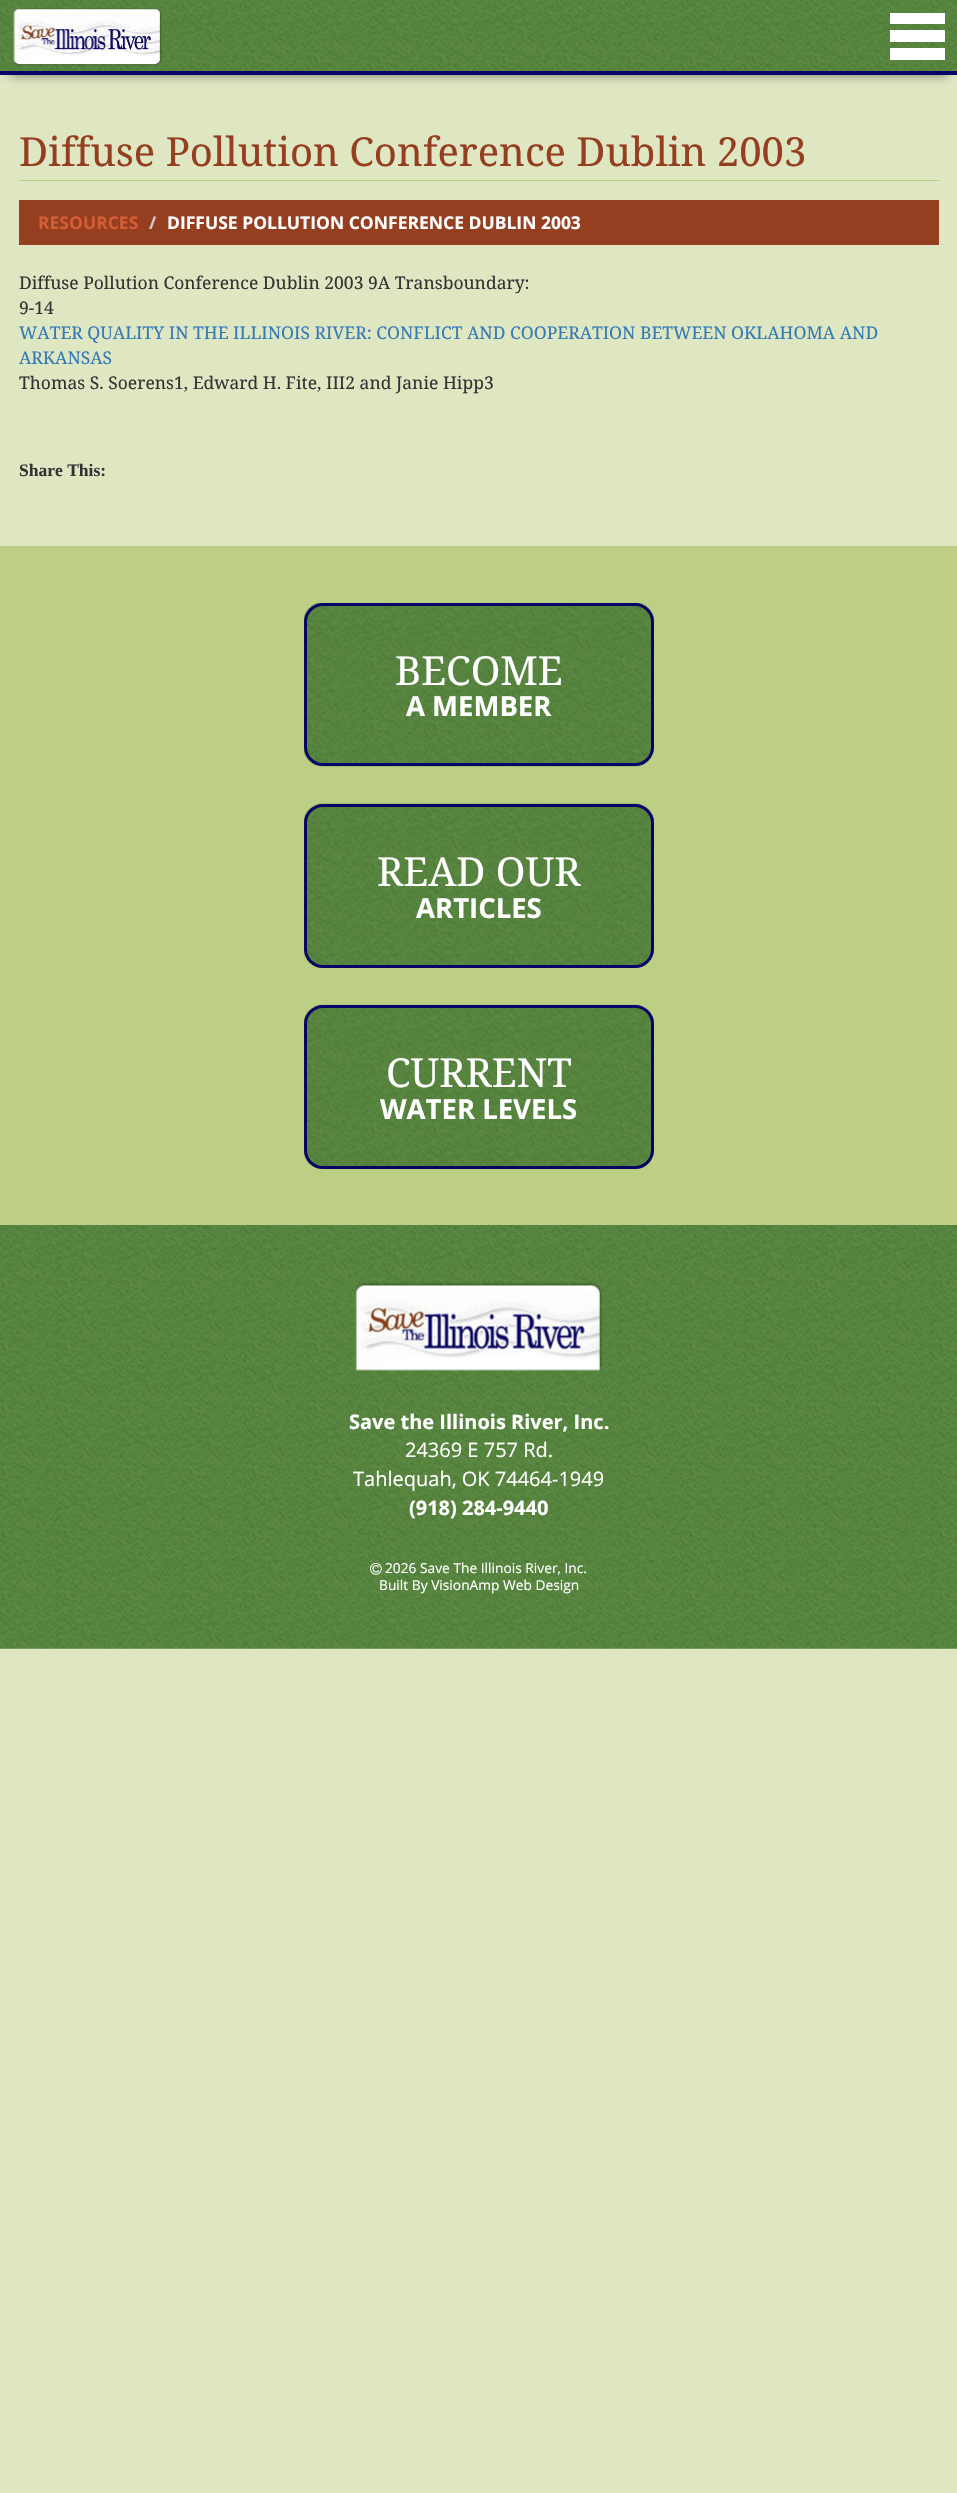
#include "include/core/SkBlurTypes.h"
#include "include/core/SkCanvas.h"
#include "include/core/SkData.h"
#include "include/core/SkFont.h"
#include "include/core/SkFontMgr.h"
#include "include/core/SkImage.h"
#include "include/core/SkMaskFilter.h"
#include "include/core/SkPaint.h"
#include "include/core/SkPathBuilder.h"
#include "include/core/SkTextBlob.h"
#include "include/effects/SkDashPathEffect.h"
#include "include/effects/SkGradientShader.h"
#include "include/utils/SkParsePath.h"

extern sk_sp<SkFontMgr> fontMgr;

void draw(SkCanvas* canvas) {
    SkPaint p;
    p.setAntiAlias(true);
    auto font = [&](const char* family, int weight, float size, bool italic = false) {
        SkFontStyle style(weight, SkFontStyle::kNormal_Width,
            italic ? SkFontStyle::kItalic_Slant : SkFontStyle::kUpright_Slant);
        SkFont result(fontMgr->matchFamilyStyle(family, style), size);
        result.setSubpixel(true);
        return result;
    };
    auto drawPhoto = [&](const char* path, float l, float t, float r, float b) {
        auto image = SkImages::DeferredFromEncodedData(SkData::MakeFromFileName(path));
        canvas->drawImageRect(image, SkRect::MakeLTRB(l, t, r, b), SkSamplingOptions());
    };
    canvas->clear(0xFFDEE6C2);
    p.setColor(0x80000000);
    p.setMaskFilter(SkMaskFilter::MakeBlur(kNormal_SkBlurStyle, 5));
    canvas->drawRect(SkRect::MakeLTRB(10, 20, 948, 75), p);
    p.setMaskFilter(nullptr);
    drawPhoto("media/1.png", 0, 0, 957, 71);
    p.setColor(0xFF070568);
    canvas->drawRect(SkRect::MakeLTRB(0, 71, 957, 75), p);
    drawPhoto("media/2.png", 13, 8, 162, 66);
    p.setColor(0xFFFFFFFF);
    canvas->drawPath(SkPathBuilder().moveTo(945, 48).lineTo(945, 60).lineTo(890, 60).lineTo(890, 48).close().moveTo(945, 30).lineTo(945, 42).lineTo(890, 42).lineTo(890, 30).close().moveTo(945, 13).lineTo(945, 24).lineTo(890, 24).lineTo(890, 13).close().detach(), p);
    p.setColor(0xFFBDCE85);
    canvas->drawRect(SkRect::MakeLTRB(19, 180, 939, 181), p);
    auto font1 = font("Noto Serif", 400, 40);
    p.setColor(0xFF953E20);
    canvas->drawString("Diffuse Pollution Conference Dublin 2003", 19, 166, font1, p);
    canvas->drawRect(SkRect::MakeLTRB(19, 200, 939, 245), p);
    auto font2 = font("Open Sans", 700, 17.5f);
    p.setColor(0xFFD35E36);
    canvas->drawString("RESOURCES", 38, 229, font2, p);
    p.setColor(0xFFCCCCCC);
    canvas->drawString("/", 149, 229, font2, p);
    p.setColor(0xFFFFFFFF);
    canvas->drawString("DIFFUSE POLLUTION CONFERENCE DUBLIN 2003", 167, 229, font2, p);
    auto font3 = font("Noto Serif", 400, 17.5f);
    p.setColor(0xFF333333);
    canvas->drawString("Diffuse Pollution Conference Dublin 2003 9A Transboundary:", 19, 289, font3, p);
    canvas->drawString("9-14", 19, 314, font3, p);
    p.setColor(0xFF337AB7);
    canvas->drawString("WATER QUALITY IN THE ILLINOIS RIVER: CONFLICT AND COOPERATION BETWEEN OKLAHOMA AND", 19, 339, font3, p);
    canvas->drawString("ARKANSAS", 19, 364, font3, p);
    p.setColor(0xFF333333);
    canvas->drawString("Thomas S. Soerens1, Edward H. Fite, III2 and Janie Hipp3", 19, 389, font3, p);
    auto font4 = font("Liberation Serif", 700, 17.5f);
    canvas->drawString("Share This:", 19, 476, font4, p);
    p.setColor(0xFFBDCE85);
    canvas->drawRect(SkRect::MakeLTRB(0, 546, 957, 1225), p);
    drawPhoto("media/3.png", 304, 603, 654, 767);
    p.setStyle(SkPaint::kStroke_Style);
    p.setStrokeWidth(3);
    p.setColor(0xFF070568);
    canvas->drawRoundRect(SkRect::MakeLTRB(305.5f, 604.5f, 652.5f, 764.5f), 17.5f, 17.5f, p);
    p.setStyle(SkPaint::kFill_Style);
    p.setColor(0xFFFFFFFF);
    canvas->drawString("BECOME", 395, 685, font1, p);
    auto font5 = font("Open Sans", 700, 27.5f);
    canvas->drawString("A MEMBER", 406, 716, font5, p);
    drawPhoto("media/4.png", 304, 803, 654, 968);
    p.setStyle(SkPaint::kStroke_Style);
    p.setColor(0xFF070568);
    canvas->drawRoundRect(SkRect::MakeLTRB(305.5f, 805.5f, 652.5f, 966.5f), 17.5f, 17.5f, p);
    p.setStyle(SkPaint::kFill_Style);
    p.setColor(0xFFFFFFFF);
    canvas->drawString("READ OUR", 377, 886, font1, p);
    canvas->drawString("ARTICLES", 416, 918, font5, p);
    drawPhoto("media/5.png", 304, 1004, 654, 1169);
    p.setStyle(SkPaint::kStroke_Style);
    p.setColor(0xFF070568);
    canvas->drawRoundRect(SkRect::MakeLTRB(305.5f, 1006.5f, 652.5f, 1167.5f), 17.5f, 17.5f, p);
    p.setStyle(SkPaint::kFill_Style);
    p.setColor(0xFFFFFFFF);
    canvas->drawString("CURRENT", 386, 1087, font1, p);
    canvas->drawString("WATER LEVELS", 380, 1119, font5, p);
    drawPhoto("media/6.png", 0, 1225, 957, 1649);
    drawPhoto("media/7.png", 355, 1282, 603, 1371);
    auto font6 = font("Open Sans", 700, 20);
    canvas->drawString("Save the Illinois River, Inc.", 349, 1429, font6, p);
    auto font7 = font("Open Sans", 400, 20);
    canvas->drawString("24369 E 757 Rd.", 405, 1457, font7, p);
    canvas->drawString("Tahlequah, OK 74464-1949", 353, 1486, font7, p);
    canvas->drawString("(918) 284-9440", 409, 1515, font6, p);
    drawPhoto("media/8.png", 370, 1563, 382, 1575);
    auto font8 = font("Open Sans", 400, 13.75f);
    canvas->drawString("2026 Save The Illinois River, Inc.", 385, 1573, font8, p);
    canvas->drawString("Built By VisionAmp Web Design", 379, 1590, font8, p);
}
